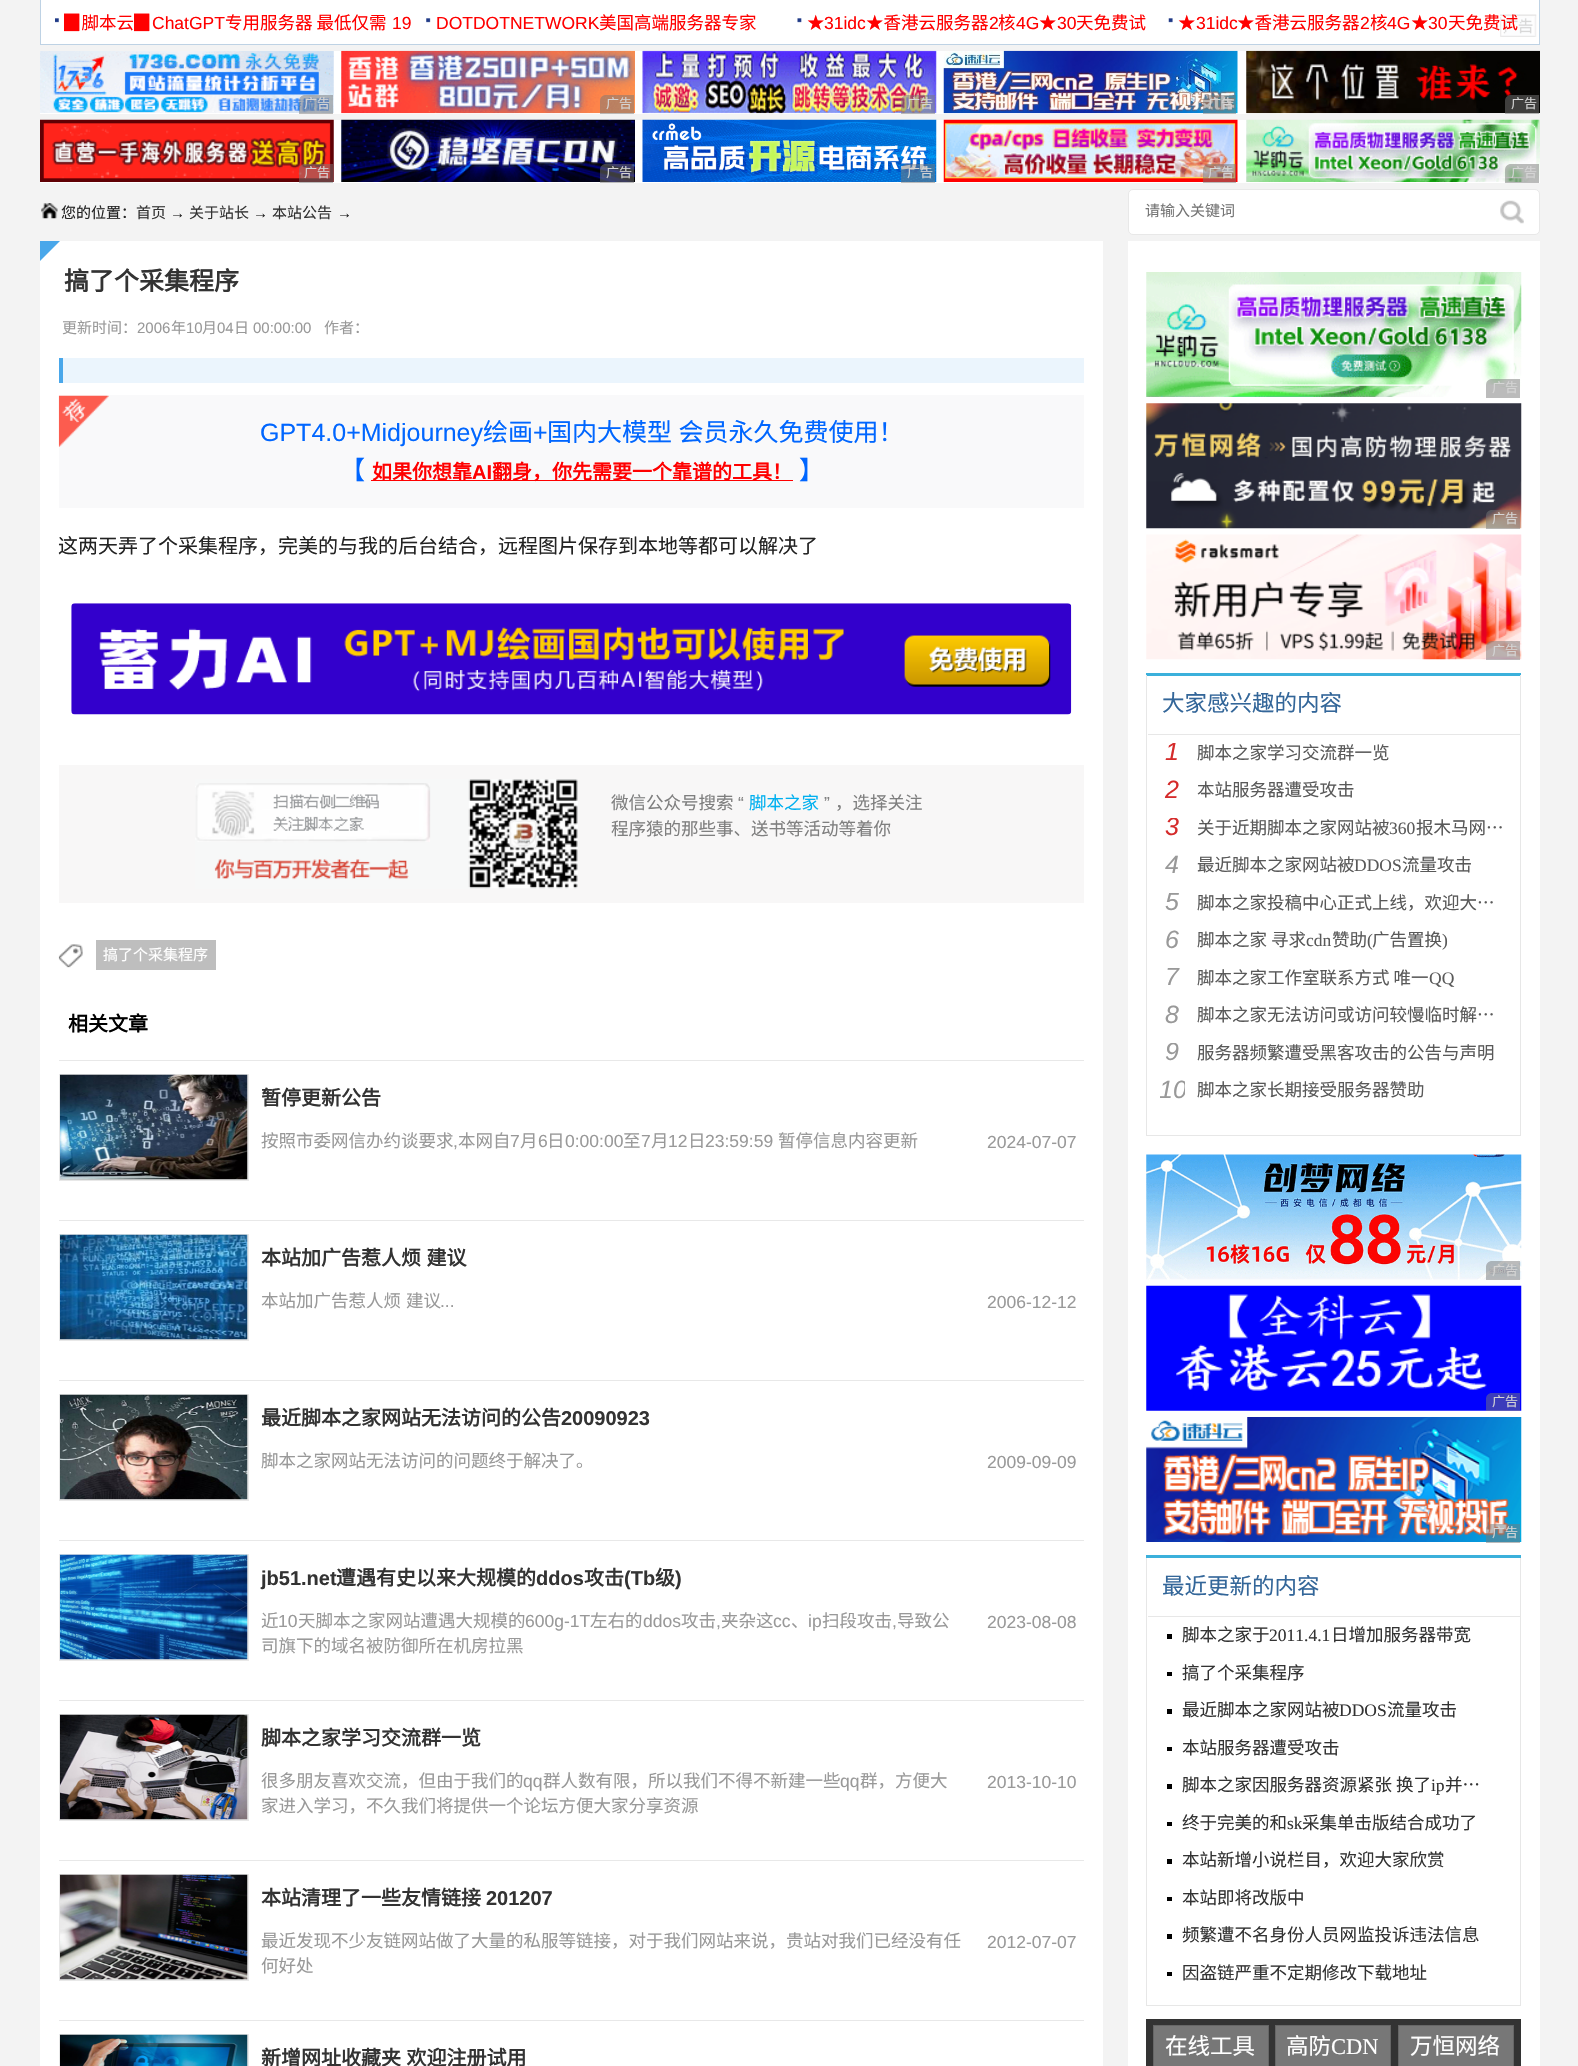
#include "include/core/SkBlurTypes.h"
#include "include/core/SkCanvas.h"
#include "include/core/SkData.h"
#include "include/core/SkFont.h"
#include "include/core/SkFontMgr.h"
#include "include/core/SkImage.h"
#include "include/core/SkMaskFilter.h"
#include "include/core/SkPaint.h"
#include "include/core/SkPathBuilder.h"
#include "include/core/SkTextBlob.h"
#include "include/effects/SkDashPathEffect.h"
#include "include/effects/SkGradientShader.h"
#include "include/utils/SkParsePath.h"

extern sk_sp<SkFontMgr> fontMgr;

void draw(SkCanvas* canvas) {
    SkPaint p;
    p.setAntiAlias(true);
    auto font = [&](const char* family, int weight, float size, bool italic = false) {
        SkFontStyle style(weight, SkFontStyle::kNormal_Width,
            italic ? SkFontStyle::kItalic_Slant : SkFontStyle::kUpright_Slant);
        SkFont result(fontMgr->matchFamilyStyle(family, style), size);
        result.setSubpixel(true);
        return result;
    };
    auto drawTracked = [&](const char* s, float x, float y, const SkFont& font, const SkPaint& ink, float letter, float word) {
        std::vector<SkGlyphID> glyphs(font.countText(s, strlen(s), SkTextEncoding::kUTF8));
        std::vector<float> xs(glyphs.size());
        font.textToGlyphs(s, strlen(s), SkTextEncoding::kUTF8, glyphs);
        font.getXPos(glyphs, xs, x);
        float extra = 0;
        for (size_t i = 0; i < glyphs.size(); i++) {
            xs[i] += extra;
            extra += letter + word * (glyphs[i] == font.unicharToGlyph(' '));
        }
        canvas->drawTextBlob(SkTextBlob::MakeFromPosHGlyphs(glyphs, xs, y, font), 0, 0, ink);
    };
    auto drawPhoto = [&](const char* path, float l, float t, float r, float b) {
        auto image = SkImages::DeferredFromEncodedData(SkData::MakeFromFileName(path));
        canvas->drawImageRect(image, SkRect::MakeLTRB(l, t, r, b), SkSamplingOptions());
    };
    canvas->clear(0xFFF3F3F3);
    p.setColor(0xFFFFFFFF);
    canvas->drawRect(SkRect::MakeLTRB(41, 0, 1539, 44), p);
    drawPhoto("media/1.png", 1500, 14, 1537, 37);
    p.setStyle(SkPaint::kStroke_Style);
    p.setStrokeWidth(1);
    p.setColor(0xFFBED2E4);
    canvas->drawRect(SkRect::MakeLTRB(40.5f, -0.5f, 1539.5f, 44.5f), p);
    drawPhoto("media/2.png", 55, 18, 59, 23);
    auto font1 = font("Noto Sans CJK SC", 400, 17.5f);
    p.setStyle(SkPaint::kFill_Style);
    p.setColor(0xFFFF0000);
    canvas->drawString("▉脚本云▉", 64, 29, font1, p);
    auto font2 = font("Liberation Sans", 400, 17.5f);
    canvas->drawString("ChatGPT", 152, 29, font2, p);
    canvas->drawString("专用服务器 最低仅需", 225, 29, font1, p);
    canvas->drawString("19", 392, 29, font2, p);
    drawPhoto("media/3.png", 426, 18, 431, 23);
    canvas->drawString("DOTDOTNETWORK", 436, 29, font2, p);
    canvas->drawString("美国高端服务器专家", 599, 29, font1, p);
    drawPhoto("media/4.png", 797, 18, 802, 23);
    canvas->drawString("★", 807, 29, font1, p);
    canvas->drawString("31idc", 824, 29, font2, p);
    canvas->drawString("★香港云服务器", 866, 29, font1, p);
    canvas->drawString("2", 989, 29, font2, p);
    canvas->drawString("核", 998, 29, font1, p);
    canvas->drawString("4G", 1016, 29, font2, p);
    canvas->drawString("★", 1039, 29, font1, p);
    canvas->drawString("30", 1057, 29, font2, p);
    canvas->drawString("天免费试", 1076, 29, font1, p);
    drawPhoto("media/5.png", 1168, 18, 1173, 23);
    canvas->drawString("★", 1178, 29, font1, p);
    canvas->drawString("31idc", 1196, 29, font2, p);
    canvas->drawString("★香港云服务器", 1237, 29, font1, p);
    canvas->drawString("2", 1360, 29, font2, p);
    canvas->drawString("核", 1370, 29, font1, p);
    canvas->drawString("4G", 1387, 29, font2, p);
    canvas->drawString("★", 1411, 29, font1, p);
    canvas->drawString("30", 1428, 29, font2, p);
    canvas->drawString("天免费试", 1448, 29, font1, p);
    p.setColor(0xFFFFFFFF);
    canvas->drawRect(SkRect::MakeLTRB(40, 51, 1540, 114), p);
    drawPhoto("media/6.png", 40, 51, 334, 113);
    p.setColor(0x80787878);
    canvas->drawPath(SkPathBuilder().moveTo(305, 95).lineTo(333, 95).lineTo(333, 114).lineTo(299, 114).lineTo(299, 101).cubicTo(299, 97.5f, 301.5f, 95, 305, 95).close().detach(), p);
    auto font3 = font("Noto Sans CJK SC", 400, 13);
    p.setColor(0xFFD5D5D5);
    canvas->drawString("广告", 304, 108, font3, p);
    drawPhoto("media/7.png", 341, 50, 635, 114);
    p.setColor(0x80787878);
    canvas->drawPath(SkPathBuilder().moveTo(606, 95).lineTo(634, 95).lineTo(634, 114).lineTo(600, 114).lineTo(600, 101).cubicTo(600, 97.5f, 602.5f, 95, 606, 95).close().detach(), p);
    p.setColor(0xFFD5D5D5);
    canvas->drawString("广告", 606, 108, font3, p);
    drawPhoto("media/8.png", 642, 50, 937, 114);
    p.setColor(0x80787878);
    canvas->drawPath(SkPathBuilder().moveTo(907, 95).lineTo(935, 95).lineTo(935, 114).lineTo(901, 114).lineTo(901, 101).cubicTo(901, 97.5f, 903.5f, 95, 907, 95).close().detach(), p);
    p.setColor(0xFFD5D5D5);
    canvas->drawString("广告", 907, 108, font3, p);
    drawPhoto("media/9.png", 943, 50, 1238, 114);
    p.setColor(0x80787878);
    canvas->drawPath(SkPathBuilder().moveTo(1209, 95).lineTo(1236, 95).lineTo(1236, 114).lineTo(1203, 114).lineTo(1203, 101).cubicTo(1203, 97.5f, 1205.5f, 95, 1209, 95).close().detach(), p);
    p.setColor(0xFFD5D5D5);
    canvas->drawString("广告", 1208, 108, font3, p);
    drawPhoto("media/10.png", 1246, 50, 1540, 114);
    p.setColor(0x80787878);
    canvas->drawPath(SkPathBuilder().moveTo(1511, 95).lineTo(1539, 95).lineTo(1539, 114).lineTo(1505, 114).lineTo(1505, 101).cubicTo(1505, 97.5f, 1507.5f, 95, 1511, 95).close().detach(), p);
    p.setColor(0xFFD5D5D5);
    canvas->drawString("广告", 1511, 108, font3, p);
    p.setColor(0xFFFFFFFF);
    canvas->drawRect(SkRect::MakeLTRB(40, 120, 1540, 183), p);
    drawPhoto("media/11.png", 40, 119, 334, 182);
    p.setColor(0x80787878);
    canvas->drawPath(SkPathBuilder().moveTo(305, 164).lineTo(333, 164).lineTo(333, 183).lineTo(299, 183).lineTo(299, 170).cubicTo(299, 166.5f, 301.5f, 164, 305, 164).close().detach(), p);
    p.setColor(0xFFD5D5D5);
    canvas->drawString("广告", 304, 177, font3, p);
    drawPhoto("media/12.png", 341, 119, 635, 182);
    p.setColor(0x80787878);
    canvas->drawPath(SkPathBuilder().moveTo(606, 164).lineTo(634, 164).lineTo(634, 183).lineTo(600, 183).lineTo(600, 170).cubicTo(600, 166.5f, 602.5f, 164, 606, 164).close().detach(), p);
    p.setColor(0xFFD5D5D5);
    canvas->drawString("广告", 606, 177, font3, p);
    drawPhoto("media/13.png", 642, 119, 937, 182);
    p.setColor(0x80787878);
    canvas->drawPath(SkPathBuilder().moveTo(907, 164).lineTo(935, 164).lineTo(935, 183).lineTo(901, 183).lineTo(901, 170).cubicTo(901, 166.5f, 903.5f, 164, 907, 164).close().detach(), p);
    p.setColor(0xFFD5D5D5);
    canvas->drawString("广告", 907, 177, font3, p);
    drawPhoto("media/14.png", 943, 119, 1238, 182);
    p.setColor(0x80787878);
    canvas->drawPath(SkPathBuilder().moveTo(1209, 164).lineTo(1236, 164).lineTo(1236, 183).lineTo(1203, 183).lineTo(1203, 170).cubicTo(1203, 166.5f, 1205.5f, 164, 1209, 164).close().detach(), p);
    p.setColor(0xFFD5D5D5);
    canvas->drawString("广告", 1208, 177, font3, p);
    drawPhoto("media/15.png", 1246, 119, 1540, 182);
    p.setColor(0x80787878);
    canvas->drawPath(SkPathBuilder().moveTo(1511, 164).lineTo(1539, 164).lineTo(1539, 183).lineTo(1505, 183).lineTo(1505, 170).cubicTo(1505, 166.5f, 1507.5f, 164, 1511, 164).close().detach(), p);
    p.setColor(0xFFD5D5D5);
    canvas->drawString("广告", 1511, 177, font3, p);
    drawPhoto("media/16.png", 41, 203, 58, 219);
    auto font4 = font("Noto Sans CJK SC", 400, 15);
    p.setColor(0xFF222222);
    canvas->drawString("您的位置：", 61, 218, font4, p);
    p.setColor(0xFF333333);
    canvas->drawString("首页", 136, 218, font4, p);
    auto font5 = font("Liberation Sans", 400, 15);
    p.setColor(0xFF222222);
    canvas->drawString("→", 170, 218, font5, p);
    p.setColor(0xFF333333);
    canvas->drawString("关于站长", 189, 218, font4, p);
    p.setColor(0xFF222222);
    canvas->drawString("→", 253, 218, font5, p);
    p.setColor(0xFF333333);
    canvas->drawString("本站公告", 272, 218, font4, p);
    p.setColor(0xFF222222);
    canvas->drawString("→", 337, 218, font5, p);
    p.setColor(0xFFFFFFFF);
    canvas->drawRoundRect(SkRect::MakeLTRB(1128.5f, 189.5f, 1539.5f, 234.5f), 4.5f, 4.5f, p);
    p.setStyle(SkPaint::kStroke_Style);
    p.setColor(0xFFE8E8E8);
    canvas->drawRoundRect(SkRect::MakeLTRB(1128.5f, 189.5f, 1539.5f, 234.5f), 4.5f, 4.5f, p);
    p.setStyle(SkPaint::kFill_Style);
    p.setColor(0xFF757575);
    canvas->drawString("请输入关键词", 1145, 216, font4, p);
    drawPhoto("media/17.png", 1500, 200, 1524, 224);
    p.setColor(0xFFFFFFFF);
    canvas->drawRect(SkRect::MakeLTRB(40, 241, 1103, 2066), p);
    p.setColor(0xFF49A7EA);
    canvas->drawPath(SkPathBuilder().moveTo(40, 241).lineTo(60, 241).lineTo(40, 261).close().detach(), p);
    auto font6 = font("Noto Sans CJK SC", 700, 25);
    p.setColor(0xFF333333);
    canvas->drawString("搞了个采集程序", 64, 290, font6, p);
    p.setColor(0xFF999999);
    canvas->drawString("更新时间：", 62, 333, font4, p);
    canvas->drawString("2006", 137, 333, font5, p);
    canvas->drawString("年", 171, 333, font4, p);
    canvas->drawString("10", 186, 333, font5, p);
    canvas->drawString("月", 202, 333, font4, p);
    canvas->drawString("04", 217, 333, font5, p);
    canvas->drawString("日", 234, 333, font4, p);
    canvas->drawString("00:00:00", 253, 333, font5, p);
    canvas->drawString("作者：", 324, 333, font4, p);
    {
        const struct { float l, t, r, b; SkColor color; } items[] = {
            {63, 358, 1084, 383, 0xFFEBF5FD},
            {59, 358, 63, 383, 0xFF49A7EA},
            {59, 395, 1084, 508, 0xFFF9F9FA},
        };
        for (auto [l, t, r, b, color] : items) {
            p.setColor(color);
            canvas->drawRect(SkRect::MakeLTRB(l, t, r, b), p);
        }
    }
    drawPhoto("media/18.png", 58, 395, 109, 447);
    auto font7 = font("Liberation Sans", 400, 25);
    p.setColor(0xFF0066FF);
    canvas->drawString("GPT4.0+Midjourney", 260, 441, font7, p);
    auto font8 = font("Noto Sans CJK SC", 400, 25);
    canvas->drawString("绘画", 483, 441, font8, p);
    canvas->drawString("+", 533, 441, font7, p);
    drawTracked("国内大模型 会员永久免费使用！", 547, 441, font8, p, 0, 1);
    canvas->drawString("【", 340, 479, font8, p);
    p.setColor(0xFFFF0000);
    canvas->drawRect(SkRect::MakeLTRB(371, 480, 793, 481), p);
    auto font9 = font("Noto Sans CJK SC", 700, 20);
    canvas->drawString("如果你想靠", 372, 479, font9, p);
    auto font10 = font("Liberation Sans", 700, 20);
    canvas->drawString("AI", 472, 479, font10, p);
    canvas->drawString("翻身，你先需要一个靠谱的工具！", 492, 479, font9, p);
    p.setColor(0xFF0066FF);
    canvas->drawString("】", 799, 479, font8, p);
    auto font11 = font("Noto Sans CJK SC", 400, 20);
    p.setColor(0xFF222222);
    canvas->drawString("这两天弄了个采集程序，完美的与我的后台结合，远程图片保存到本地等都可以解决了", 58, 553, font11, p);
    drawPhoto("media/19.png", 71, 603, 1072, 715);
    p.setColor(0xFFF8F7F7);
    canvas->drawRect(SkRect::MakeLTRB(59, 765, 1084, 903), p);
    drawPhoto("media/20.png", 195, 779, 578, 889);
    p.setColor(0xFF7F7F7F);
    canvas->drawString("微信公众号搜索", 611, 809, font1, p);
    canvas->drawString("“", 738, 809, font2, p);
    p.setColor(0xFF00B0F0);
    canvas->drawString("脚本之家", 749, 809, font1, p);
    p.setColor(0xFF7F7F7F);
    canvas->drawString("”", 824, 809, font2, p);
    canvas->drawString("，选择关注", 835, 809, font1, p);
    canvas->drawString("程序猿的那些事、送书等活动等着你", 611, 835, font1, p);
    drawPhoto("media/21.png", 58, 944, 83, 968);
    p.setColor(0xFFBEBEBE);
    canvas->drawRect(SkRect::MakeLTRB(96, 940, 216, 970), p);
    p.setColor(0xFFFFFFFF);
    canvas->drawString("搞了个采集程序", 103, 960, font4, p);
    p.setColor(0xFF000000);
    canvas->drawString("相关文章", 68, 1031, font9, p);
    p.setColor(0xFFE8E8E8);
    canvas->drawRect(SkRect::MakeLTRB(59, 1060, 1084, 1061), p);
    canvas->drawRect(SkRect::MakeLTRB(59, 1074, 249, 1181), p);
    drawPhoto("media/22.png", 60, 1074, 248, 1180);
    p.setColor(0xFF333333);
    canvas->drawString("暂停更新公告", 261, 1105, font9, p);
    p.setColor(0xFF999999);
    canvas->drawString("按照市委网信办约谈要求", 261, 1147, font1, p);
    canvas->drawString(",", 453, 1147, font2, p);
    canvas->drawString("本网自", 458, 1147, font1, p);
    canvas->drawString("7", 510, 1147, font2, p);
    canvas->drawString("月", 520, 1147, font1, p);
    canvas->drawString("6", 538, 1147, font2, p);
    canvas->drawString("日", 547, 1147, font1, p);
    canvas->drawString("0:00:00", 565, 1147, font2, p);
    canvas->drawString("至", 623, 1147, font1, p);
    canvas->drawString("7", 641, 1147, font2, p);
    canvas->drawString("月", 651, 1147, font1, p);
    canvas->drawString("12", 668, 1147, font2, p);
    canvas->drawString("日", 688, 1147, font1, p);
    canvas->drawString("23:59:59", 705, 1147, font2, p);
    canvas->drawString("暂停信息内容更新", 778, 1147, font1, p);
    canvas->drawString("2024-07-07", 987, 1148, font2, p);
    p.setColor(0xFFE8E8E8);
    canvas->drawRect(SkRect::MakeLTRB(59, 1220, 1084, 1221), p);
    canvas->drawRect(SkRect::MakeLTRB(59, 1234, 249, 1341), p);
    drawPhoto("media/23.png", 60, 1234, 248, 1340);
    p.setColor(0xFF333333);
    drawTracked("本站加广告惹人烦 建议", 261, 1265, font9, p, 0, 1);
    p.setColor(0xFF999999);
    drawTracked("本站加广告惹人烦 建议", 261, 1307, font1, p, 0, 1);
    canvas->drawString("...", 440, 1307, font2, p);
    canvas->drawString("2006-12-12", 987, 1308, font2, p);
    p.setColor(0xFFE8E8E8);
    canvas->drawRect(SkRect::MakeLTRB(59, 1380, 1084, 1381), p);
    canvas->drawRect(SkRect::MakeLTRB(59, 1394, 249, 1501), p);
    drawPhoto("media/24.png", 60, 1394, 248, 1500);
    p.setColor(0xFF333333);
    canvas->drawString("最近脚本之家网站无法访问的公告", 261, 1425, font9, p);
    canvas->drawString("20090923", 561, 1425, font10, p);
    p.setColor(0xFF999999);
    canvas->drawString("脚本之家网站无法访问的问题终于解决了。", 261, 1467, font1, p);
    canvas->drawString("2009-09-09", 987, 1468, font2, p);
    p.setColor(0xFFE8E8E8);
    canvas->drawRect(SkRect::MakeLTRB(59, 1540, 1084, 1541), p);
    canvas->drawRect(SkRect::MakeLTRB(59, 1554, 249, 1661), p);
    drawPhoto("media/25.png", 60, 1554, 248, 1660);
    p.setColor(0xFF333333);
    canvas->drawString("jb51.net", 261, 1585, font10, p);
    canvas->drawString("遭遇有史以来大规模的", 336, 1585, font9, p);
    canvas->drawString("ddos", 536, 1585, font10, p);
    canvas->drawString("攻击", 584, 1585, font9, p);
    canvas->drawString("(Tb", 624, 1585, font10, p);
    canvas->drawString("级", 655, 1585, font9, p);
    canvas->drawString(")", 675, 1585, font10, p);
    p.setColor(0xFF999999);
    canvas->drawString("近", 261, 1627, font1, p);
    canvas->drawString("10", 278, 1627, font2, p);
    canvas->drawString("天脚本之家网站遭遇大规模的", 298, 1627, font1, p);
    canvas->drawString("600g-1T", 525, 1627, font2, p);
    canvas->drawString("左右的", 590, 1627, font1, p);
    canvas->drawString("ddos", 643, 1627, font2, p);
    canvas->drawString("攻击", 681, 1627, font1, p);
    canvas->drawString(",", 716, 1627, font2, p);
    canvas->drawString("夹杂这", 721, 1627, font1, p);
    canvas->drawString("cc", 773, 1627, font2, p);
    canvas->drawString("、", 791, 1627, font1, p);
    canvas->drawString("ip", 808, 1627, font2, p);
    canvas->drawString("扫段攻击", 822, 1627, font1, p);
    canvas->drawString(",", 892, 1627, font2, p);
    canvas->drawString("导致公", 897, 1627, font1, p);
    canvas->drawString("司旗下的域名被防御所在机房拉黑", 261, 1652, font1, p);
    canvas->drawString("2023-08-08", 987, 1628, font2, p);
    p.setColor(0xFFE8E8E8);
    canvas->drawRect(SkRect::MakeLTRB(59, 1700, 1084, 1701), p);
    canvas->drawRect(SkRect::MakeLTRB(59, 1714, 249, 1821), p);
    drawPhoto("media/26.png", 60, 1714, 248, 1820);
    p.setColor(0xFF333333);
    canvas->drawString("脚本之家学习交流群一览", 261, 1745, font9, p);
    p.setColor(0xFF999999);
    canvas->drawString("很多朋友喜欢交流，但由于我们的", 261, 1787, font1, p);
    canvas->drawString("qq", 523, 1787, font2, p);
    canvas->drawString("群人数有限，所以我们不得不新建一些", 543, 1787, font1, p);
    canvas->drawString("qq", 840, 1787, font2, p);
    canvas->drawString("群，方便大", 860, 1787, font1, p);
    canvas->drawString("家进入学习，不久我们将提供一个论坛方便大家分享资源", 261, 1812, font1, p);
    canvas->drawString("2013-10-10", 987, 1788, font2, p);
    p.setColor(0xFFE8E8E8);
    canvas->drawRect(SkRect::MakeLTRB(59, 1860, 1084, 1861), p);
    canvas->drawRect(SkRect::MakeLTRB(59, 1874, 249, 1981), p);
    drawPhoto("media/27.png", 60, 1874, 248, 1980);
    p.setColor(0xFF333333);
    canvas->drawString("本站清理了一些友情链接", 261, 1905, font9, p);
    canvas->drawString("201207", 486, 1905, font10, p);
    p.setColor(0xFF999999);
    canvas->drawString("最近发现不少友链网站做了大量的私服等链接，对于我们网站来说，贵站对我们已经没有任", 261, 1947, font1, p);
    canvas->drawString("何好处", 261, 1972, font1, p);
    canvas->drawString("2012-07-07", 987, 1948, font2, p);
    p.setColor(0xFFE8E8E8);
    canvas->drawRect(SkRect::MakeLTRB(59, 2020, 1084, 2021), p);
    canvas->drawRect(SkRect::MakeLTRB(59, 2034, 249, 2066), p);
    drawPhoto("media/28.png", 60, 2034, 248, 2066);
    p.setColor(0xFF333333);
    drawTracked("新增网址收藏夹 欢迎注册试用", 261, 2065, font9, p, 0, 1);
    p.setColor(0xFFFFFFFF);
    canvas->drawRect(SkRect::MakeLTRB(1128, 241, 1540, 2066), p);
    drawPhoto("media/29.png", 1146, 272, 1522, 397);
    p.setColor(0x80787878);
    canvas->drawPath(SkPathBuilder().moveTo(1492, 379).lineTo(1520, 379).lineTo(1520, 398).lineTo(1486, 398).lineTo(1486, 385).cubicTo(1486, 381.5f, 1488.5f, 379, 1492, 379).close().detach(), p);
    p.setColor(0xFFD5D5D5);
    canvas->drawString("广告", 1492, 392, font3, p);
    drawPhoto("media/30.png", 1146, 403, 1522, 529);
    p.setColor(0x80787878);
    canvas->drawPath(SkPathBuilder().moveTo(1492, 510).lineTo(1520, 510).lineTo(1520, 529).lineTo(1486, 529).lineTo(1486, 516).cubicTo(1486, 512.5f, 1488.5f, 510, 1492, 510).close().detach(), p);
    p.setColor(0xFFD5D5D5);
    canvas->drawString("广告", 1492, 523, font3, p);
    drawPhoto("media/31.png", 1146, 534, 1522, 660);
    p.setColor(0x80787878);
    canvas->drawPath(SkPathBuilder().moveTo(1492, 641).lineTo(1520, 641).lineTo(1520, 660).lineTo(1486, 660).lineTo(1486, 647).cubicTo(1486, 643.5f, 1488.5f, 641, 1492, 641).close().detach(), p);
    p.setColor(0xFFD5D5D5);
    canvas->drawString("广告", 1492, 655, font3, p);
    {
        const struct { float l, t, r, b; SkColor color; } items[] = {
            {1146, 673, 1521, 676, 0xFF3BB0DB},
            {1520, 675, 1521, 1136, 0xFFE7E7E7},
            {1146, 1135, 1521, 1136, 0xFFE7E7E7},
            {1146, 675, 1147, 1136, 0xFFE7E7E7},
            {1148, 734, 1520, 735, 0xFFE7E7E7},
        };
        for (auto [l, t, r, b, color] : items) {
            p.setColor(color);
            canvas->drawRect(SkRect::MakeLTRB(l, t, r, b), p);
        }
    }
    auto font12 = font("Noto Sans CJK SC", 400, 22.5f);
    p.setColor(0xFF336699);
    canvas->drawString("大家感兴趣的内容", 1162, 711, font12, p);
    canvas->save();
    canvas->clipRect(SkRect::MakeLTRB(1160, 743, 1185, 768));
    auto font13 = font("Liberation Sans", 400, 25, true);
    p.setColor(0xFFD52B2B);
    canvas->drawString("1", 1165, 760, font13, p);
    canvas->restore();
    p.setColor(0xFF595959);
    canvas->drawString("脚本之家学习交流群一览", 1197, 759, font1, p);
    p.setColor(0xFFD52B2B);
    canvas->drawString("2", 1165, 798, font13, p);
    p.setColor(0xFF595959);
    canvas->drawString("本站服务器遭受攻击", 1197, 796, font1, p);
    canvas->save();
    canvas->clipRect(SkRect::MakeLTRB(1160, 818, 1185, 843));
    p.setColor(0xFFD52B2B);
    canvas->drawString("3", 1165, 835, font13, p);
    canvas->restore();
    p.setColor(0xFF595959);
    canvas->drawString("关于近期脚本之家网站被", 1197, 834, font1, p);
    auto font14 = font("Liberation Serif", 400, 17.5f);
    canvas->drawString("360", 1389, 834, font14, p);
    canvas->drawString("报木马网…", 1416, 834, font1, p);
    p.setColor(0xFF999999);
    canvas->drawString("4", 1165, 873, font13, p);
    p.setColor(0xFF595959);
    canvas->drawString("最近脚本之家网站被", 1197, 871, font1, p);
    canvas->drawString("DDOS", 1354, 871, font14, p);
    canvas->drawString("流量攻击", 1402, 871, font1, p);
    canvas->save();
    canvas->clipRect(SkRect::MakeLTRB(1160, 893, 1185, 918));
    p.setColor(0xFF999999);
    canvas->drawString("5", 1165, 910, font13, p);
    canvas->restore();
    p.setColor(0xFF595959);
    canvas->drawString("脚本之家投稿中心正式上线，欢迎大…", 1197, 909, font1, p);
    p.setColor(0xFF999999);
    canvas->drawString("6", 1165, 948, font13, p);
    p.setColor(0xFF595959);
    canvas->drawString("脚本之家 寻求", 1197, 946, font1, p);
    canvas->drawString("cdn", 1306, 946, font14, p);
    canvas->drawString("赞助", 1332, 946, font1, p);
    canvas->drawString("(", 1367, 946, font14, p);
    canvas->drawString("广告置换", 1372, 946, font1, p);
    canvas->drawString(")", 1442, 946, font14, p);
    canvas->save();
    canvas->clipRect(SkRect::MakeLTRB(1160, 968, 1185, 993));
    p.setColor(0xFF999999);
    canvas->drawString("7", 1165, 985, font13, p);
    canvas->restore();
    p.setColor(0xFF595959);
    canvas->drawString("脚本之家工作室联系方式 唯一", 1197, 984, font1, p);
    canvas->drawString("QQ", 1429, 984, font14, p);
    p.setColor(0xFF999999);
    canvas->drawString("8", 1165, 1023, font13, p);
    p.setColor(0xFF595959);
    canvas->drawString("脚本之家无法访问或访问较慢临时解…", 1197, 1021, font1, p);
    canvas->save();
    canvas->clipRect(SkRect::MakeLTRB(1160, 1043, 1185, 1068));
    p.setColor(0xFF999999);
    canvas->drawString("9", 1165, 1060, font13, p);
    canvas->restore();
    p.setColor(0xFF595959);
    canvas->drawString("服务器频繁遭受黑客攻击的公告与声明", 1197, 1059, font1, p);
    canvas->save();
    canvas->clipRect(SkRect::MakeLTRB(1160, 1080, 1185, 1105));
    p.setColor(0xFF999999);
    canvas->drawString("10", 1159, 1098, font13, p);
    canvas->restore();
    p.setColor(0xFF595959);
    canvas->drawString("脚本之家长期接受服务器赞助", 1197, 1096, font1, p);
    drawPhoto("media/32.png", 1146, 1154, 1522, 1280);
    p.setColor(0x80787878);
    canvas->drawPath(SkPathBuilder().moveTo(1492, 1261).lineTo(1520, 1261).lineTo(1520, 1280).lineTo(1486, 1280).lineTo(1486, 1267).cubicTo(1486, 1263.5f, 1488.5f, 1261, 1492, 1261).close().detach(), p);
    p.setColor(0xFFD5D5D5);
    canvas->drawString("广告", 1492, 1275, font3, p);
    drawPhoto("media/33.png", 1146, 1285, 1522, 1411);
    p.setColor(0x80787878);
    canvas->drawPath(SkPathBuilder().moveTo(1492, 1393).lineTo(1520, 1393).lineTo(1520, 1411).lineTo(1486, 1411).lineTo(1486, 1399).cubicTo(1486, 1395.5f, 1488.5f, 1393, 1492, 1393).close().detach(), p);
    p.setColor(0xFFD5D5D5);
    canvas->drawString("广告", 1492, 1406, font3, p);
    drawPhoto("media/34.png", 1146, 1417, 1522, 1542);
    p.setColor(0x80787878);
    canvas->drawPath(SkPathBuilder().moveTo(1492, 1524).lineTo(1520, 1524).lineTo(1520, 1543).lineTo(1486, 1543).lineTo(1486, 1530).cubicTo(1486, 1526.5f, 1488.5f, 1524, 1492, 1524).close().detach(), p);
    p.setColor(0xFFD5D5D5);
    canvas->drawString("广告", 1492, 1537, font3, p);
    {
        const struct { float l, t, r, b; SkColor color; } items[] = {
            {1146, 1555, 1521, 1558, 0xFF3BB0DB},
            {1520, 1558, 1521, 2006, 0xFFE7E7E7},
            {1146, 2005, 1521, 2006, 0xFFE7E7E7},
            {1146, 1558, 1147, 2006, 0xFFE7E7E7},
            {1148, 1616, 1520, 1617, 0xFFE7E7E7},
        };
        for (auto [l, t, r, b, color] : items) {
            p.setColor(color);
            canvas->drawRect(SkRect::MakeLTRB(l, t, r, b), p);
        }
    }
    p.setColor(0xFF336699);
    canvas->drawString("最近更新的内容", 1162, 1594, font12, p);
    p.setColor(0xFF000000);
    canvas->drawRect(SkRect::MakeLTRB(1167, 1634, 1172, 1639), p);
    p.setColor(0xFF333333);
    canvas->drawString("脚本之家于", 1182, 1641, font1, p);
    canvas->drawString("2011.4.1", 1269, 1641, font14, p);
    canvas->drawString("日增加服务器带宽", 1331, 1641, font1, p);
    p.setColor(0xFF000000);
    canvas->drawRect(SkRect::MakeLTRB(1167, 1672, 1172, 1676), p);
    p.setColor(0xFF333333);
    canvas->drawString("搞了个采集程序", 1182, 1679, font1, p);
    p.setColor(0xFF000000);
    canvas->drawRect(SkRect::MakeLTRB(1167, 1709, 1172, 1714), p);
    p.setColor(0xFF333333);
    canvas->drawString("最近脚本之家网站被", 1182, 1716, font1, p);
    canvas->drawString("DDOS", 1339, 1716, font14, p);
    canvas->drawString("流量攻击", 1387, 1716, font1, p);
    p.setColor(0xFF000000);
    canvas->drawRect(SkRect::MakeLTRB(1167, 1747, 1172, 1751), p);
    p.setColor(0xFF333333);
    canvas->drawString("本站服务器遭受攻击", 1182, 1754, font1, p);
    p.setColor(0xFF000000);
    canvas->drawRect(SkRect::MakeLTRB(1167, 1784, 1172, 1789), p);
    p.setColor(0xFF333333);
    canvas->drawString("脚本之家因服务器资源紧张 换了", 1182, 1791, font1, p);
    canvas->drawString("ip", 1431, 1791, font14, p);
    canvas->drawString("并…", 1445, 1791, font1, p);
    p.setColor(0xFF000000);
    canvas->drawRect(SkRect::MakeLTRB(1167, 1822, 1172, 1826), p);
    p.setColor(0xFF333333);
    canvas->drawString("终于完美的和", 1182, 1829, font1, p);
    canvas->drawString("sk", 1287, 1829, font14, p);
    canvas->drawString("采集单击版结合成功了", 1302, 1829, font1, p);
    p.setColor(0xFF000000);
    canvas->drawRect(SkRect::MakeLTRB(1167, 1859, 1172, 1864), p);
    p.setColor(0xFF333333);
    canvas->drawString("本站新增小说栏目，欢迎大家欣赏", 1182, 1866, font1, p);
    p.setColor(0xFF000000);
    canvas->drawRect(SkRect::MakeLTRB(1167, 1897, 1172, 1901), p);
    p.setColor(0xFF333333);
    canvas->drawString("本站即将改版中", 1182, 1904, font1, p);
    p.setColor(0xFF000000);
    canvas->drawRect(SkRect::MakeLTRB(1167, 1934, 1172, 1939), p);
    p.setColor(0xFF333333);
    canvas->drawString("频繁遭不名身份人员网监投诉违法信息", 1182, 1941, font1, p);
    p.setColor(0xFF000000);
    canvas->drawRect(SkRect::MakeLTRB(1167, 1972, 1172, 1976), p);
    p.setColor(0xFF333333);
    canvas->drawString("因盗链严重不定期修改下载地址", 1182, 1979, font1, p);
    canvas->drawRect(SkRect::MakeLTRB(1146, 2019, 1521, 2066), p);
    p.setColor(0xFF777777);
    canvas->drawRect(SkRect::MakeLTRB(1153.5f, 2025.5f, 1268.5f, 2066.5f), p);
    p.setStyle(SkPaint::kStroke_Style);
    p.setColor(0xFF666666);
    canvas->drawRect(SkRect::MakeLTRB(1153.5f, 2025.5f, 1268.5f, 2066.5f), p);
    p.setStyle(SkPaint::kFill_Style);
    p.setColor(0xFFFFFFFF);
    canvas->drawString("在线工具", 1165, 2054, font12, p);
    p.setColor(0xFF777777);
    canvas->drawRect(SkRect::MakeLTRB(1275.5f, 2025.5f, 1390.5f, 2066.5f), p);
    p.setStyle(SkPaint::kStroke_Style);
    p.setColor(0xFF666666);
    canvas->drawRect(SkRect::MakeLTRB(1275.5f, 2025.5f, 1390.5f, 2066.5f), p);
    p.setStyle(SkPaint::kFill_Style);
    p.setColor(0xFFFFFFFF);
    canvas->drawString("高防", 1286, 2054, font12, p);
    auto font15 = font("Liberation Serif", 400, 22.5f);
    canvas->drawString("CDN", 1331, 2054, font15, p);
    p.setColor(0xFF777777);
    canvas->drawRect(SkRect::MakeLTRB(1398.5f, 2025.5f, 1513.5f, 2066.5f), p);
    p.setStyle(SkPaint::kStroke_Style);
    p.setColor(0xFF666666);
    canvas->drawRect(SkRect::MakeLTRB(1398.5f, 2025.5f, 1513.5f, 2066.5f), p);
    p.setStyle(SkPaint::kFill_Style);
    p.setColor(0xFFFFFFFF);
    canvas->drawString("万恒网络", 1410, 2054, font12, p);
}
